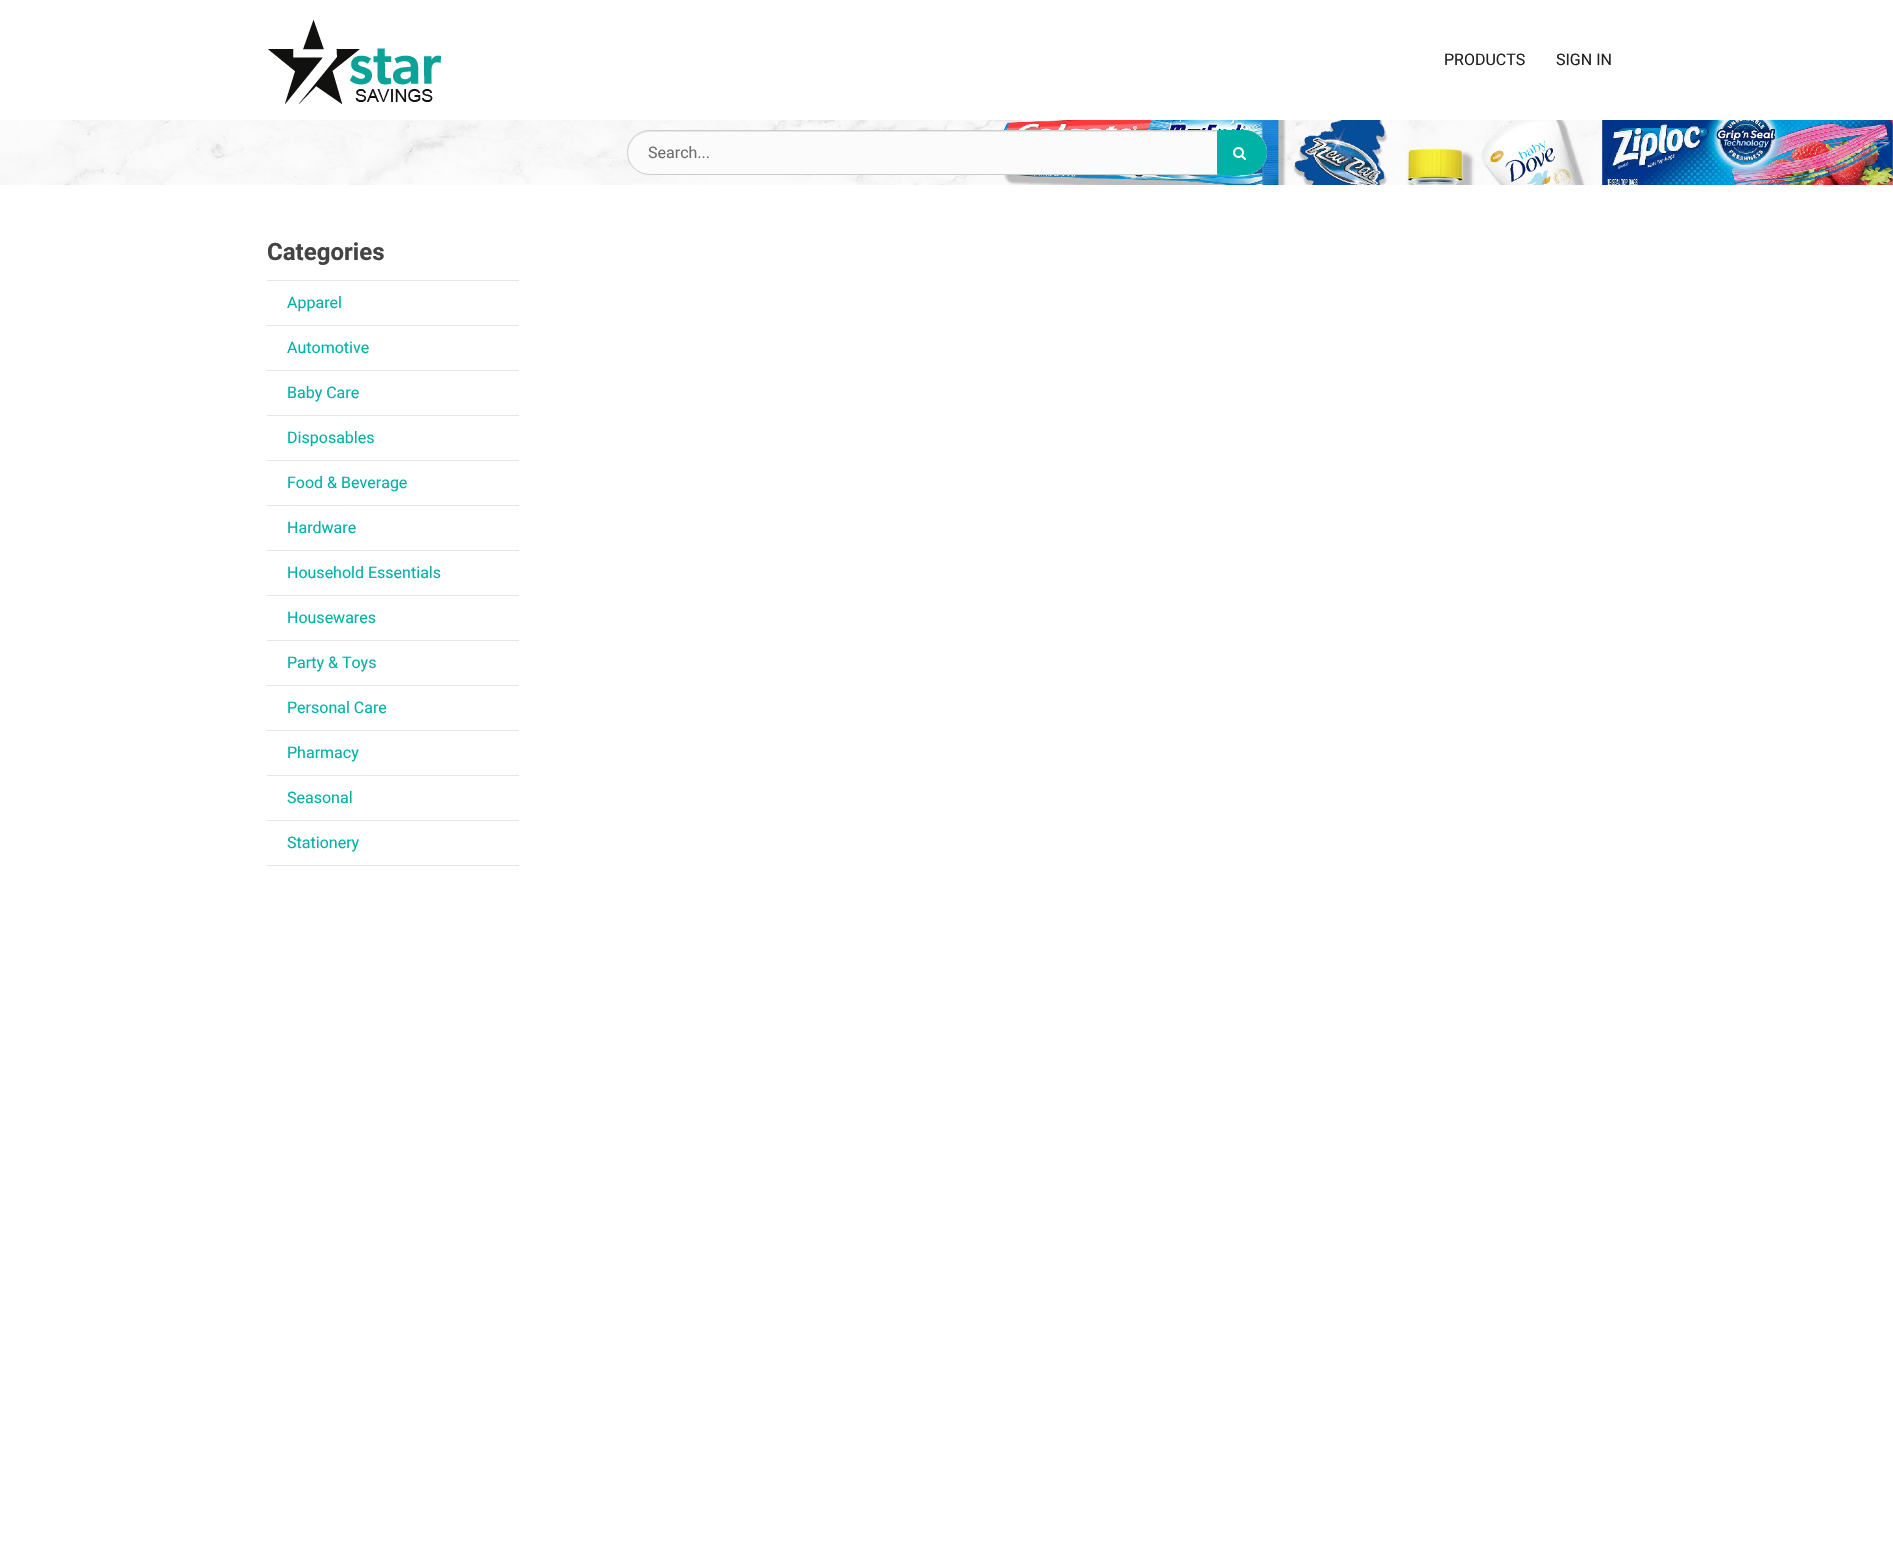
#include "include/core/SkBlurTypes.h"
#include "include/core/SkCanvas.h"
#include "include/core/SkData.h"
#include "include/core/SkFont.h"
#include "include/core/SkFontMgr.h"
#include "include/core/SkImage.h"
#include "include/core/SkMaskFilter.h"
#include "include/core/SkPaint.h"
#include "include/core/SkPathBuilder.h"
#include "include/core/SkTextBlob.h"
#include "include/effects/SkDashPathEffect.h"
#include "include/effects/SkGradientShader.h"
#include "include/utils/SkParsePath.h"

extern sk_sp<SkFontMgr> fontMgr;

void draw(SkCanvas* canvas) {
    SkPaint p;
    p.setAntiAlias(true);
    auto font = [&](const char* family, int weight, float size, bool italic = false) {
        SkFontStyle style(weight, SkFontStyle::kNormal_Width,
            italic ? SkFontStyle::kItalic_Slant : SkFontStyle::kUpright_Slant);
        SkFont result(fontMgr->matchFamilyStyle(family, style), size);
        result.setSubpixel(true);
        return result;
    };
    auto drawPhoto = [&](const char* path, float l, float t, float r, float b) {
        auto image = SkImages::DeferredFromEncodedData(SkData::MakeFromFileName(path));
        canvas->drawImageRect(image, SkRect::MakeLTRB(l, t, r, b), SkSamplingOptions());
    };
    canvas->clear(0xFFFFFFFF);
    drawPhoto("media/1.png", 268, 20, 442, 104);
    auto font1 = font("Heebo", 400, 16);
    p.setColor(0xFF222222);
    canvas->drawString("PRODUCTS", 1444, 65, font1, p);
    canvas->drawString("SIGN IN", 1556, 65, font1, p);
    drawPhoto("media/2.png", 0, 120, 1893, 185);
    p.setColor(0xFFFBFBFB);
    canvas->drawRoundRect(SkRect::MakeLTRB(627, 130, 1267, 175), 22.5f, 22.5f, p);
    p.setColor(0xFFE8E8E8);
    canvas->drawPath(SkPathBuilder().moveTo(650, 132).lineTo(1244, 132).cubicTo(1256, 132, 1266, 142, 1266, 153).lineTo(1266, 152).cubicTo(1266, 141, 1256, 131, 1244, 131).lineTo(650, 131).cubicTo(638, 131, 628, 141, 628, 152).lineTo(628, 153).cubicTo(628, 142, 638, 132, 650, 132).close().detach(), p);
    p.setStyle(SkPaint::kStroke_Style);
    p.setStrokeWidth(1);
    p.setColor(0xFFCCCCCC);
    canvas->drawRoundRect(SkRect::MakeLTRB(627.5f, 130.5f, 1266.5f, 174.5f), 22, 22, p);
    p.setStyle(SkPaint::kFill_Style);
    p.setColor(0xFF6E6E6E);
    canvas->drawString("Search...", 648, 158, font1, p);
    p.setColor(0xFF00B1A6);
    canvas->drawPath(SkPathBuilder().moveTo(1218.5f, 130.5f).lineTo(1244.5f, 130.5f).cubicTo(1256.5f, 130.5f, 1266.5f, 140.5f, 1266.5f, 152.5f).cubicTo(1266.5f, 164.5f, 1256.5f, 174.5f, 1244.5f, 174.5f).lineTo(1218.5f, 174.5f).cubicTo(1218, 174.5f, 1217.5f, 174, 1217.5f, 173.5f).lineTo(1217.5f, 131.5f).cubicTo(1217.5f, 131, 1218, 130.5f, 1218.5f, 130.5f).close().detach(), p);
    p.setStyle(SkPaint::kStroke_Style);
    canvas->drawPath(SkPathBuilder().moveTo(1218.5f, 130.5f).lineTo(1244.5f, 130.5f).cubicTo(1256.5f, 130.5f, 1266.5f, 140.5f, 1266.5f, 152.5f).cubicTo(1266.5f, 164.5f, 1256.5f, 174.5f, 1244.5f, 174.5f).lineTo(1218.5f, 174.5f).cubicTo(1218, 174.5f, 1217.5f, 174, 1217.5f, 173.5f).lineTo(1217.5f, 131.5f).cubicTo(1217.5f, 131, 1218, 130.5f, 1218.5f, 130.5f).close().detach(), p);
    drawPhoto("media/3.png", 1233, 147, 1246, 160);
    auto font2 = font("Heebo", 700, 24);
    p.setStyle(SkPaint::kFill_Style);
    p.setColor(0xFF444444);
    canvas->drawString("Categories", 267, 260, font2, p);
    p.setColor(0xFFE6E6E6);
    canvas->drawRect(SkRect::MakeLTRB(267, 280, 519, 281), p);
    canvas->drawRect(SkRect::MakeLTRB(267, 325, 519, 326), p);
    p.setColor(0xFF00B1A6);
    canvas->drawString("Apparel", 287, 308, font1, p);
    p.setColor(0xFFE6E6E6);
    canvas->drawRect(SkRect::MakeLTRB(267, 370, 519, 371), p);
    p.setColor(0xFF00B1A6);
    canvas->drawString("Automotive", 287, 353, font1, p);
    p.setColor(0xFFE6E6E6);
    canvas->drawRect(SkRect::MakeLTRB(267, 415, 519, 416), p);
    p.setColor(0xFF00B1A6);
    canvas->drawString("Baby Care", 287, 398, font1, p);
    p.setColor(0xFFE6E6E6);
    canvas->drawRect(SkRect::MakeLTRB(267, 460, 519, 461), p);
    p.setColor(0xFF00B1A6);
    canvas->drawString("Disposables", 287, 443, font1, p);
    p.setColor(0xFFE6E6E6);
    canvas->drawRect(SkRect::MakeLTRB(267, 505, 519, 506), p);
    p.setColor(0xFF00B1A6);
    canvas->drawString("Food & Beverage", 287, 488, font1, p);
    p.setColor(0xFFE6E6E6);
    canvas->drawRect(SkRect::MakeLTRB(267, 550, 519, 551), p);
    p.setColor(0xFF00B1A6);
    canvas->drawString("Hardware", 287, 533, font1, p);
    p.setColor(0xFFE6E6E6);
    canvas->drawRect(SkRect::MakeLTRB(267, 595, 519, 596), p);
    p.setColor(0xFF00B1A6);
    canvas->drawString("Household Essentials", 287, 578, font1, p);
    p.setColor(0xFFE6E6E6);
    canvas->drawRect(SkRect::MakeLTRB(267, 640, 519, 641), p);
    p.setColor(0xFF00B1A6);
    canvas->drawString("Housewares", 287, 623, font1, p);
    p.setColor(0xFFE6E6E6);
    canvas->drawRect(SkRect::MakeLTRB(267, 685, 519, 686), p);
    p.setColor(0xFF00B1A6);
    canvas->drawString("Party & Toys", 287, 668, font1, p);
    p.setColor(0xFFE6E6E6);
    canvas->drawRect(SkRect::MakeLTRB(267, 730, 519, 731), p);
    p.setColor(0xFF00B1A6);
    canvas->drawString("Personal Care", 287, 713, font1, p);
    p.setColor(0xFFE6E6E6);
    canvas->drawRect(SkRect::MakeLTRB(267, 775, 519, 776), p);
    p.setColor(0xFF00B1A6);
    canvas->drawString("Pharmacy", 287, 758, font1, p);
    p.setColor(0xFFE6E6E6);
    canvas->drawRect(SkRect::MakeLTRB(267, 820, 519, 821), p);
    p.setColor(0xFF00B1A6);
    canvas->drawString("Seasonal", 287, 803, font1, p);
    p.setColor(0xFFE6E6E6);
    canvas->drawRect(SkRect::MakeLTRB(267, 865, 519, 866), p);
    p.setColor(0xFF00B1A6);
    canvas->drawString("Stationery", 287, 848, font1, p);
}
